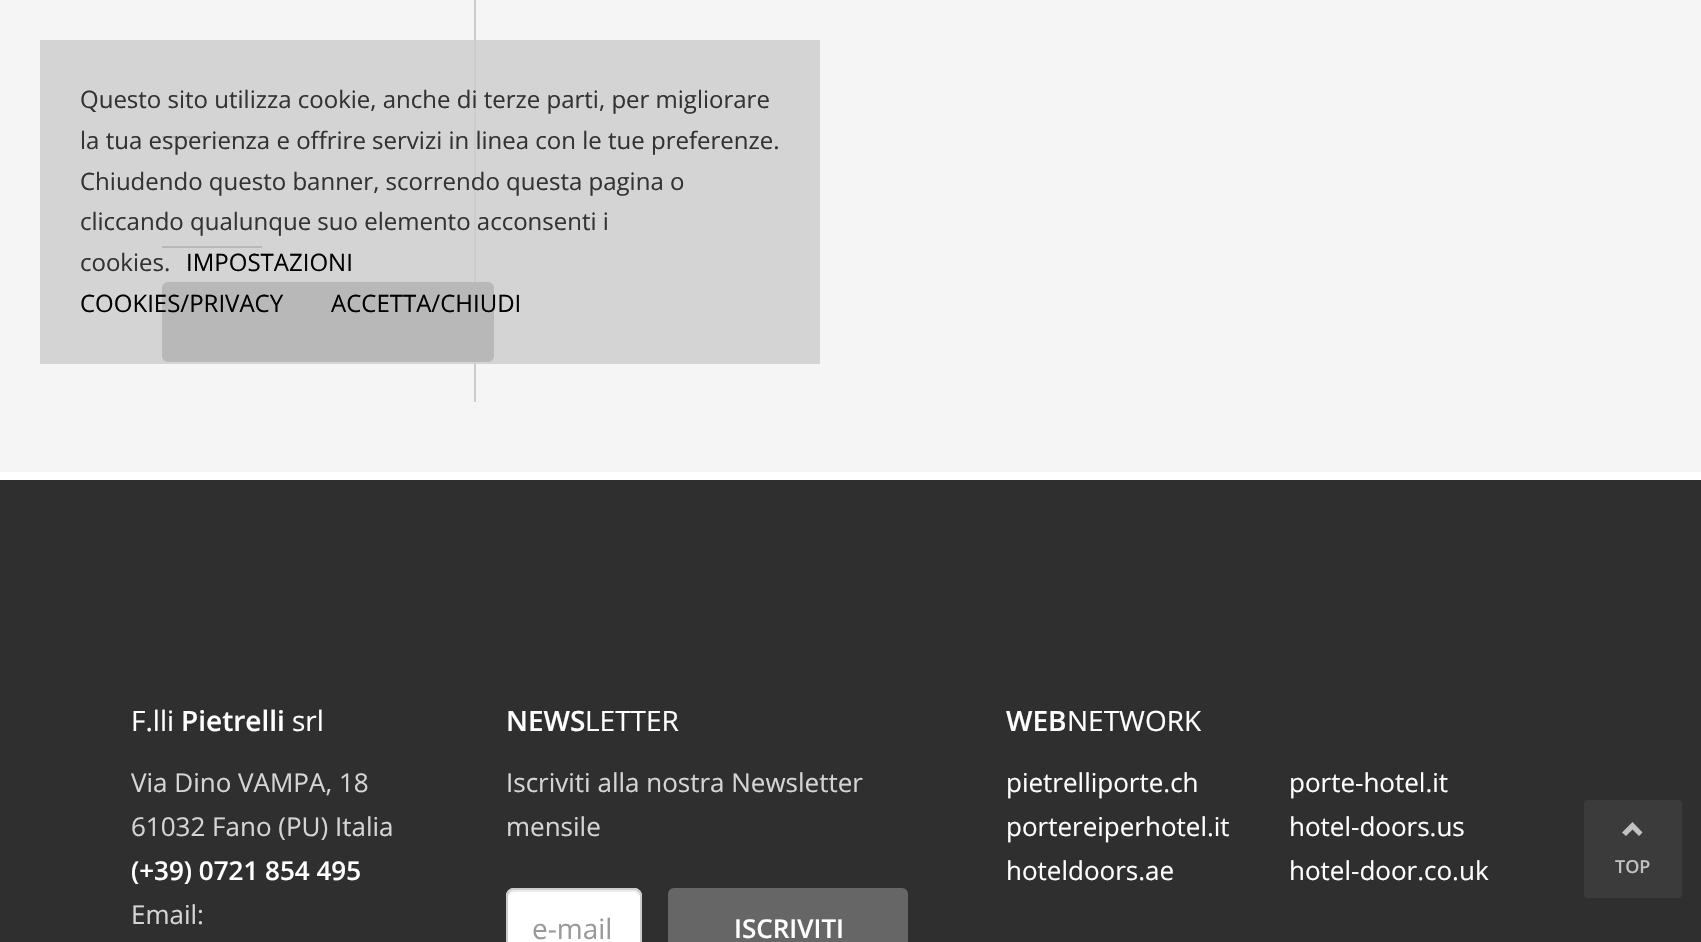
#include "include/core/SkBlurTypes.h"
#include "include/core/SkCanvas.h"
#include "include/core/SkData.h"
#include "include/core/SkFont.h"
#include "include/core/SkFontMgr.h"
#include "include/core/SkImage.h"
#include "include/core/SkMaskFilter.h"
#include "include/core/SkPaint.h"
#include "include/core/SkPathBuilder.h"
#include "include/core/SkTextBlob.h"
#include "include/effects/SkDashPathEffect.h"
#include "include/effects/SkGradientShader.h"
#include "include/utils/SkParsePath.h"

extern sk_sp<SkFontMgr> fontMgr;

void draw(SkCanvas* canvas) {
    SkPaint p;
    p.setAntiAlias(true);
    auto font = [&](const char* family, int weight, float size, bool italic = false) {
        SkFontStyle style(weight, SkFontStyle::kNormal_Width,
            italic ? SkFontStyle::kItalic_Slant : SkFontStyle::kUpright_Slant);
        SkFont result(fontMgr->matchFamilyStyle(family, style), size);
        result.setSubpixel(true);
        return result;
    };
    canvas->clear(0xFFF5F5F5);
    {
        const struct { float l, t, r, b; SkColor color; } items[] = {
            {474, 0, 476, 402, 0xFFCCCCCC},
            {162, 136, 262, 138, 0xFF666666},
            {262, 136, 414, 138, 0xFFECECEC},
            {162, 246, 262, 248, 0xFF666666},
            {262, 246, 414, 248, 0xFFECECEC},
        };
        for (auto [l, t, r, b, color] : items) {
            p.setColor(color);
            canvas->drawRect(SkRect::MakeLTRB(l, t, r, b), p);
        }
    }
    p.setColor(0xFF666666);
    canvas->drawRoundRect(SkRect::MakeLTRB(162, 282, 494, 362), 6, 6, p);
    p.setColor(0xCCCCCCCC);
    canvas->drawRect(SkRect::MakeLTRB(40, 40, 820, 364), p);
    auto font1 = font("Open Sans", 400, 24);
    p.setColor(0xFF333333);
    {
        const struct { const char* s; float x, y; } items[] = {
            {"Questo sito utilizza cookie, anche di terze parti, per migliorare", 80, 108},
            {"la tua esperienza e offrire servizi in linea con le tue preferenze.", 80, 149},
            {"Chiudendo questo banner, scorrendo questa pagina o", 80, 190},
            {"cliccando qualunque suo elemento acconsenti i", 80, 230},
            {"cookies.", 80, 271},
        };
        for (auto [s, x, y] : items) {
            canvas->drawString(s, x, y, font1, p);
        }
    }
    p.setColor(0xFF000000);
    {
        const struct { const char* s; float x, y; } items[] = {
            {"IMPOSTAZIONI", 186, 271},
            {"COOKIES/PRIVACY", 80, 312},
            {"ACCETTA/CHIUDI", 331, 312},
        };
        for (auto [s, x, y] : items) {
            canvas->drawString(s, x, y, font1, p);
        }
    }
    p.setColor(0xFF2F2F2F);
    canvas->drawRect(SkRect::MakeLTRB(0, 480, 1701, 942), p);
    p.setColor(0xFFFFFFFF);
    canvas->drawRect(SkRect::MakeLTRB(0, 472, 1701, 480), p);
    auto font2 = font("Open Sans", 400, 28);
    canvas->drawString("F.lli", 131, 731, font2, p);
    auto font3 = font("Open Sans", 600, 28);
    canvas->drawString("Pietrelli", 181, 731, font3, p);
    canvas->drawString("srl", 292, 731, font2, p);
    auto font4 = font("Open Sans", 400, 26);
    p.setColor(0xFFD5D5D5);
    canvas->drawString("Via Dino VAMPA, 18", 131, 792, font4, p);
    canvas->drawString("61032 Fano (PU) Italia", 131, 836, font4, p);
    auto font5 = font("Open Sans", 600, 26);
    p.setColor(0xFFFFFFFF);
    canvas->drawString("(+39) 0721 854 495", 131, 880, font5, p);
    p.setColor(0xFFD5D5D5);
    canvas->drawString("Email:", 131, 924, font4, p);
    p.setColor(0xFFFFFFFF);
    canvas->drawString("NEWS", 506, 731, font3, p);
    canvas->drawString("LETTER", 585, 731, font2, p);
    p.setColor(0xFFD5D5D5);
    canvas->drawString("Iscriviti alla nostra Newsletter", 506, 792, font4, p);
    canvas->drawString("mensile", 506, 836, font4, p);
    p.setColor(0xFFFFFFFF);
    canvas->drawRoundRect(SkRect::MakeLTRB(506, 888, 642, 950), 8, 8, p);
    p.setColor(0xFFECECEC);
    canvas->drawPath(SkPathBuilder().moveTo(514, 892).lineTo(634, 892).cubicTo(637, 892, 640, 895, 640, 898).lineTo(640, 896).cubicTo(640, 893, 637, 890, 634, 890).lineTo(514, 890).cubicTo(511, 890, 508, 893, 508, 896).lineTo(508, 898).cubicTo(508, 895, 511, 892, 514, 892).close().detach(), p);
    p.setStyle(SkPaint::kStroke_Style);
    p.setStrokeWidth(2);
    p.setColor(0xFFCCCCCC);
    canvas->drawRoundRect(SkRect::MakeLTRB(507, 889, 641, 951), 7, 7, p);
    p.setStyle(SkPaint::kFill_Style);
    p.setColor(0xFF999999);
    canvas->drawString("e-mail", 532, 939, font2, p);
    p.setColor(0xFF666666);
    canvas->drawRoundRect(SkRect::MakeLTRB(668, 888, 908, 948), 6, 6, p);
    p.setColor(0xFFFFFFFF);
    canvas->drawString("ISCRIVITI", 734, 938, font5, p);
    canvas->drawString("WEB", 1006, 731, font3, p);
    canvas->drawString("NETWORK", 1067, 731, font2, p);
    {
        const struct { const char* s; float x, y; } items[] = {
            {"pietrelliporte.ch", 1006, 792},
            {"porte-hotel.it", 1289, 792},
            {"portereiperhotel.it", 1006, 836},
            {"hotel-doors.us", 1289, 836},
            {"hoteldoors.ae", 1006, 880},
            {"hotel-door.co.uk", 1289, 880},
        };
        for (auto [s, x, y] : items) {
            canvas->drawString(s, x, y, font4, p);
        }
    }
    p.setColor(0xFF3B3B3B);
    canvas->drawRoundRect(SkRect::MakeLTRB(1584, 800, 1682, 898), 4, 4, p);
    p.setColor(0xFFC1C1C1);
    canvas->drawPath(SkPathBuilder().moveTo(1632.5f, 822).lineTo(1642.5f, 832.5f).lineTo(1639, 836).lineTo(1632.5f, 829.5f).lineTo(1626, 836).lineTo(1622, 832.5f).close().detach(), p);
    auto font6 = font("Open Sans", 600, 18);
    canvas->drawString("TOP", 1615, 873, font6, p);
}
